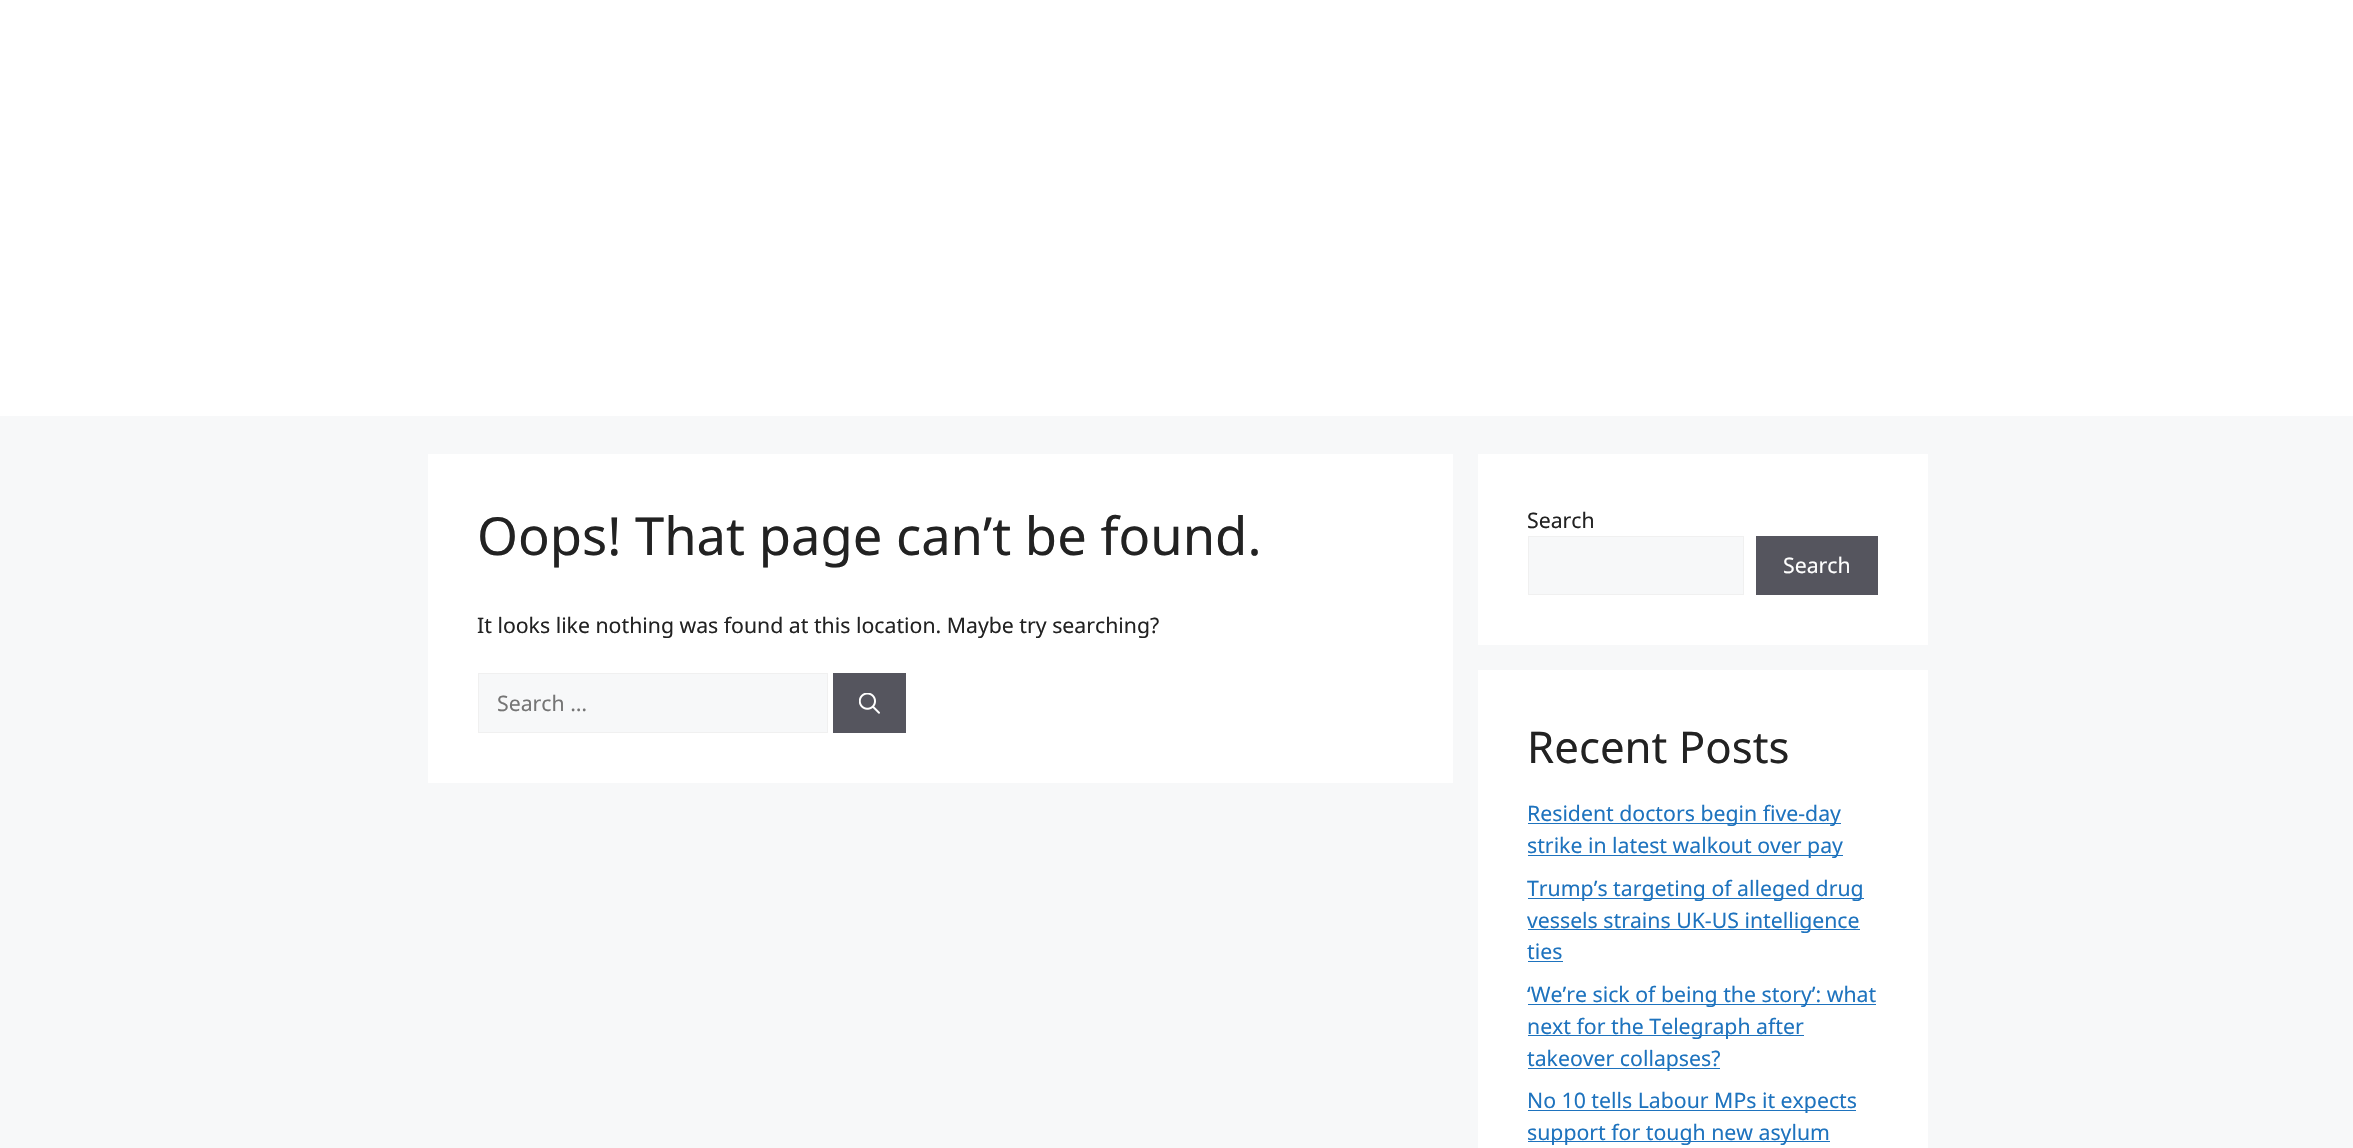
#include "include/core/SkBlurTypes.h"
#include "include/core/SkCanvas.h"
#include "include/core/SkData.h"
#include "include/core/SkFont.h"
#include "include/core/SkFontMgr.h"
#include "include/core/SkImage.h"
#include "include/core/SkMaskFilter.h"
#include "include/core/SkPaint.h"
#include "include/core/SkPathBuilder.h"
#include "include/core/SkTextBlob.h"
#include "include/effects/SkDashPathEffect.h"
#include "include/effects/SkGradientShader.h"
#include "include/utils/SkParsePath.h"

extern sk_sp<SkFontMgr> fontMgr;

void draw(SkCanvas* canvas) {
    SkPaint p;
    p.setAntiAlias(true);
    auto font = [&](const char* family, int weight, float size, bool italic = false) {
        SkFontStyle style(weight, SkFontStyle::kNormal_Width,
            italic ? SkFontStyle::kItalic_Slant : SkFontStyle::kUpright_Slant);
        SkFont result(fontMgr->matchFamilyStyle(family, style), size);
        result.setSubpixel(true);
        return result;
    };
    auto drawPhoto = [&](const char* path, float l, float t, float r, float b) {
        auto image = SkImages::DeferredFromEncodedData(SkData::MakeFromFileName(path));
        canvas->drawImageRect(image, SkRect::MakeLTRB(l, t, r, b), SkSamplingOptions());
    };
    canvas->clear(0xFFF7F8F9);
    p.setColor(0xFFFFFFFF);
    canvas->drawRect(SkRect::MakeLTRB(0, 0, 2353, 416), p);
    canvas->drawRect(SkRect::MakeLTRB(428, 454, 1453, 783), p);
    auto font1 = font("Noto Sans", 400, 52.5f);
    p.setColor(0xFF222222);
    canvas->drawString("Oops! That page can’t be found.", 477, 555, font1, p);
    auto font2 = font("Noto Sans", 400, 21.25f);
    canvas->drawString("It looks like nothing was found at this location. Maybe try searching?", 477, 633, font2, p);
    p.setColor(0xFFF7F8F9);
    canvas->drawRect(SkRect::MakeLTRB(478.5f, 673.5f, 827.5f, 732.5f), p);
    p.setStyle(SkPaint::kStroke_Style);
    p.setStrokeWidth(1);
    p.setColor(0xFFF0F0F0);
    canvas->drawRect(SkRect::MakeLTRB(478.5f, 673.5f, 827.5f, 732.5f), p);
    p.setStyle(SkPaint::kFill_Style);
    p.setColor(0xFF757575);
    canvas->drawString("Search …", 497, 711, font2, p);
    p.setColor(0xFF55555E);
    canvas->drawRect(SkRect::MakeLTRB(833, 673, 906, 733), p);
    drawPhoto("media/1.png", 859, 693, 880, 714);
    p.setColor(0xFFFFFFFF);
    canvas->drawRect(SkRect::MakeLTRB(1478, 454, 1928, 645), p);
    p.setColor(0xFF222222);
    canvas->drawString("Search", 1527, 528, font2, p);
    p.setColor(0xFFF7F8F9);
    canvas->drawRect(SkRect::MakeLTRB(1528.5f, 536.5f, 1743.5f, 594.5f), p);
    p.setStyle(SkPaint::kStroke_Style);
    p.setColor(0xFFF0F0F0);
    canvas->drawRect(SkRect::MakeLTRB(1528.5f, 536.5f, 1743.5f, 594.5f), p);
    p.setStyle(SkPaint::kFill_Style);
    p.setColor(0xFF55555E);
    canvas->drawRect(SkRect::MakeLTRB(1756, 536, 1878, 595), p);
    p.setColor(0xFFFFFFFF);
    canvas->drawString("Search", 1783, 573, font2, p);
    canvas->drawRect(SkRect::MakeLTRB(1478, 670, 1928, 1148), p);
    auto font3 = font("Noto Sans", 400, 43.75f);
    p.setColor(0xFF222222);
    canvas->drawString("Recent Posts", 1527, 763, font3, p);
    p.setColor(0xFF1E73BE);
    canvas->drawRect(SkRect::MakeLTRB(1528, 823, 1841, 824), p);
    canvas->drawString("Resident doctors begin five-day", 1527, 821, font2, p);
    canvas->drawRect(SkRect::MakeLTRB(1528, 855, 1843, 856), p);
    canvas->drawString("strike in latest walkout over pay", 1527, 853, font2, p);
    canvas->drawRect(SkRect::MakeLTRB(1528, 898, 1864, 899), p);
    canvas->drawString("Trump’s targeting of alleged drug", 1527, 896, font2, p);
    canvas->drawRect(SkRect::MakeLTRB(1528, 929, 1860, 930), p);
    canvas->drawString("vessels strains UK-US intelligence", 1527, 928, font2, p);
    canvas->drawString("ties", 1527, 959, font2, p);
    canvas->drawRect(SkRect::MakeLTRB(1528, 961, 1563, 962), p);
    canvas->drawRect(SkRect::MakeLTRB(1528, 1004, 1876, 1005), p);
    canvas->drawString("‘We’re sick of being the story’: what", 1527, 1002, font2, p);
    canvas->drawRect(SkRect::MakeLTRB(1528, 1035, 1804, 1036), p);
    canvas->drawString("next for the Telegraph after", 1527, 1034, font2, p);
    canvas->drawRect(SkRect::MakeLTRB(1528, 1068, 1720, 1069), p);
    canvas->drawString("takeover collapses?", 1527, 1066, font2, p);
    canvas->drawRect(SkRect::MakeLTRB(1528, 1110, 1856, 1111), p);
    canvas->drawString("No 10 tells Labour MPs it expects", 1527, 1108, font2, p);
    canvas->drawRect(SkRect::MakeLTRB(1528, 1141, 1830, 1142), p);
    canvas->drawString("support for tough new asylum", 1527, 1140, font2, p);
}
